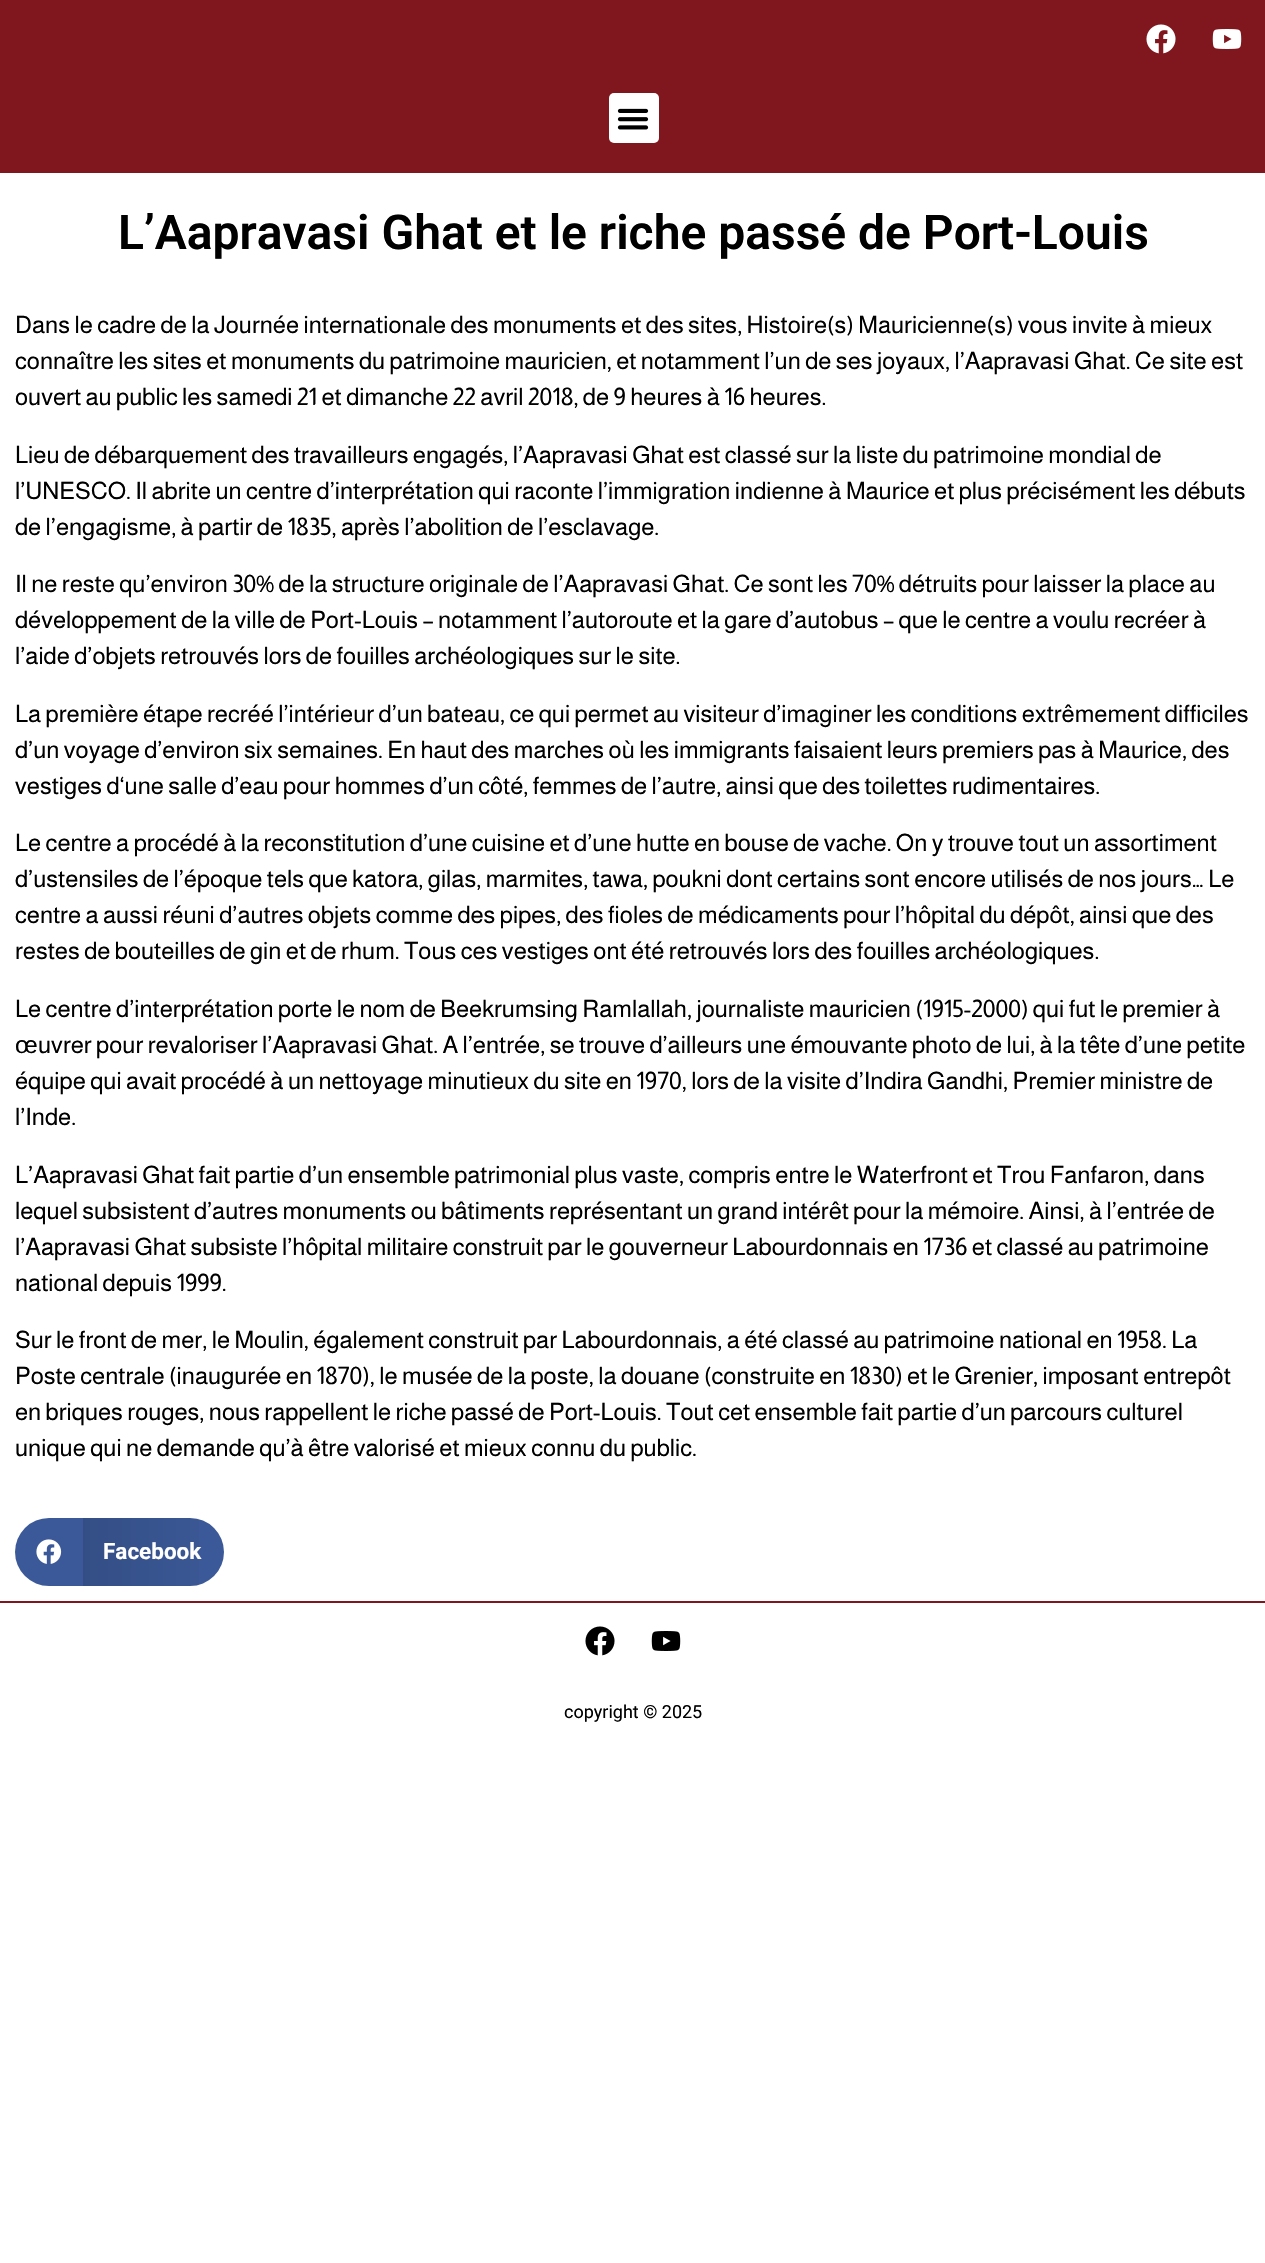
#include "include/core/SkBlurTypes.h"
#include "include/core/SkCanvas.h"
#include "include/core/SkData.h"
#include "include/core/SkFont.h"
#include "include/core/SkFontMgr.h"
#include "include/core/SkImage.h"
#include "include/core/SkMaskFilter.h"
#include "include/core/SkPaint.h"
#include "include/core/SkPathBuilder.h"
#include "include/core/SkTextBlob.h"
#include "include/effects/SkDashPathEffect.h"
#include "include/effects/SkGradientShader.h"
#include "include/utils/SkParsePath.h"

extern sk_sp<SkFontMgr> fontMgr;

void draw(SkCanvas* canvas) {
    SkPaint p;
    p.setAntiAlias(true);
    auto font = [&](const char* family, int weight, float size, bool italic = false) {
        SkFontStyle style(weight, SkFontStyle::kNormal_Width,
            italic ? SkFontStyle::kItalic_Slant : SkFontStyle::kUpright_Slant);
        SkFont result(fontMgr->matchFamilyStyle(family, style), size);
        result.setSubpixel(true);
        return result;
    };
    auto drawPhoto = [&](const char* path, float l, float t, float r, float b) {
        auto image = SkImages::DeferredFromEncodedData(SkData::MakeFromFileName(path));
        canvas->drawImageRect(image, SkRect::MakeLTRB(l, t, r, b), SkSamplingOptions());
    };
    canvas->clear(0xFFFFFFFF);
    p.setColor(0xFF80171E);
    canvas->drawRect(SkRect::MakeLTRB(0, 0, 1265, 173), p);
    drawPhoto("media/1.png", 1146, 24, 1176, 54);
    drawPhoto("media/2.png", 1212, 29, 1242, 49);
    p.setColor(0xFFFFFFFF);
    canvas->drawRoundRect(SkRect::MakeLTRB(609, 93, 659, 143), 5, 5, p);
    drawPhoto("media/3.png", 617, 108, 649, 130);
    auto font1 = font("Roboto", 600, 48);
    p.setColor(0xFF000000);
    canvas->drawString("L’Aapravasi Ghat et le riche passé de Port-Louis", 118, 249, font1, p);
    auto font2 = font("Almarai", 400, 24);
    {
        const struct { const char* s; float x, y; } items[] = {
            {"Dans le cadre de la Journée internationale des monuments et des sites, Histoire(s) Mauricienne(s) vous invite à mieux", 15, 333},
            {"connaître les sites et monuments du patrimoine mauricien, et notamment l’un de ses joyaux, l’Aapravasi Ghat. Ce site est", 15, 369},
            {"ouvert au public les samedi 21 et dimanche 22 avril 2018, de 9 heures à 16 heures.", 15, 405},
            {"Lieu de débarquement des travailleurs engagés, l’Aapravasi Ghat est classé sur la liste du patrimoine mondial de", 15, 463},
            {"l’UNESCO. Il abrite un centre d’interprétation qui raconte l’immigration indienne à Maurice et plus précisément les débuts", 15, 499},
            {"de l’engagisme, à partir de 1835, après l’abolition de l’esclavage.", 15, 535},
            {"Il ne reste qu’environ 30% de la structure originale de l’Aapravasi Ghat. Ce sont les 70% détruits pour laisser la place au", 15, 592},
            {"développement de la ville de Port-Louis – notamment l’autoroute et la gare d’autobus – que le centre a voulu recréer à", 15, 628},
            {"l’aide d’objets retrouvés lors de fouilles archéologiques sur le site.", 15, 664},
            {"La première étape recréé l’intérieur d’un bateau, ce qui permet au visiteur d’imaginer les conditions extrêmement difficiles", 15, 722},
            {"d’un voyage d’environ six semaines. En haut des marches où les immigrants faisaient leurs premiers pas à Maurice, des", 15, 758},
            {"vestiges d‘une salle d’eau pour hommes d’un côté, femmes de l’autre, ainsi que des toilettes rudimentaires.", 15, 794},
            {"Le centre a procédé à la reconstitution d’une cuisine et d’une hutte en bouse de vache. On y trouve tout un assortiment", 15, 851},
            {"d’ustensiles de l’époque tels que katora, gilas, marmites, tawa, poukni dont certains sont encore utilisés de nos jours… Le", 15, 887},
            {"centre a aussi réuni d’autres objets comme des pipes, des fioles de médicaments pour l’hôpital du dépôt, ainsi que des", 15, 923},
            {"restes de bouteilles de gin et de rhum. Tous ces vestiges ont été retrouvés lors des fouilles archéologiques.", 15, 959},
            {"Le centre d’interprétation porte le nom de Beekrumsing Ramlallah, journaliste mauricien (1915-2000) qui fut le premier à", 15, 1017},
        };
        for (auto [s, x, y] : items) {
            canvas->drawString(s, x, y, font2, p);
        }
    }
    auto font3 = font("Liberation Sans", 400, 24);
    canvas->drawString("œ", 15, 1053, font3, p);
    {
        const struct { const char* s; float x, y; } items[] = {
            {"uvrer pour revaloriser l’Aapravasi Ghat. A l’entrée, se trouve d’ailleurs une émouvante photo de lui, à la tête d’une petite", 38, 1053},
            {"équipe qui avait procédé à un nettoyage minutieux du site en 1970, lors de la visite d’Indira Gandhi, Premier ministre de", 15, 1089},
            {"l’Inde.", 15, 1125},
            {"L’Aapravasi Ghat fait partie d’un ensemble patrimonial plus vaste, compris entre le Waterfront et Trou Fanfaron, dans", 15, 1183},
            {"lequel subsistent d’autres monuments ou bâtiments représentant un grand intérêt pour la mémoire. Ainsi, à l’entrée de", 15, 1219},
            {"l’Aapravasi Ghat subsiste l’hôpital militaire construit par le gouverneur Labourdonnais en 1736 et classé au patrimoine", 15, 1255},
            {"national depuis 1999.", 15, 1291},
            {"Sur le front de mer, le Moulin, également construit par Labourdonnais, a été classé au patrimoine national en 1958. La", 15, 1348},
            {"Poste centrale (inaugurée en 1870), le musée de la poste, la douane (construite en 1830) et le Grenier, imposant entrepôt", 15, 1384},
            {"en briques rouges, nous rappellent le riche passé de Port-Louis. Tout cet ensemble fait partie d’un parcours culturel", 15, 1420},
            {"unique qui ne demande qu’à être valorisé et mieux connu du public.", 15, 1456},
        };
        for (auto [s, x, y] : items) {
            canvas->drawString(s, x, y, font2, p);
        }
    }
    p.setColor(0xFF3B5998);
    canvas->drawRoundRect(SkRect::MakeLTRB(15, 1518, 224, 1586), 34, 34, p);
    drawPhoto("media/4.png", 36, 1539, 62, 1564);
    {
        const SkColor colors[] = {0x1F000000, 0x00000000};
        const float stops[] = {0, 1};
        const SkPoint ends[] = {{83, 1552}, {224, 1552}};
        p.setShader(SkGradientShader::MakeLinear(ends, colors, stops, 2, SkTileMode::kClamp));
        p.setAlpha(255);
    }
    canvas->drawRect(SkRect::MakeLTRB(83, 1518, 199, 1586), p);
    auto font4 = font("Roboto", 700, 22.5f);
    p.setShader(nullptr);
    p.setColor(0xFFFFFFFF);
    canvas->drawString("Facebook", 103, 1559, font4, p);
    p.setColor(0xFF80171E);
    canvas->drawRect(SkRect::MakeLTRB(0, 1601, 1265, 1603), p);
    drawPhoto("media/5.png", 585, 1626, 615, 1656);
    drawPhoto("media/6.png", 651, 1631, 681, 1651);
    auto font5 = font("Roboto", 400, 18);
    p.setColor(0xFF000000);
    canvas->drawString("copyright © 2025", 564, 1718, font5, p);
}
